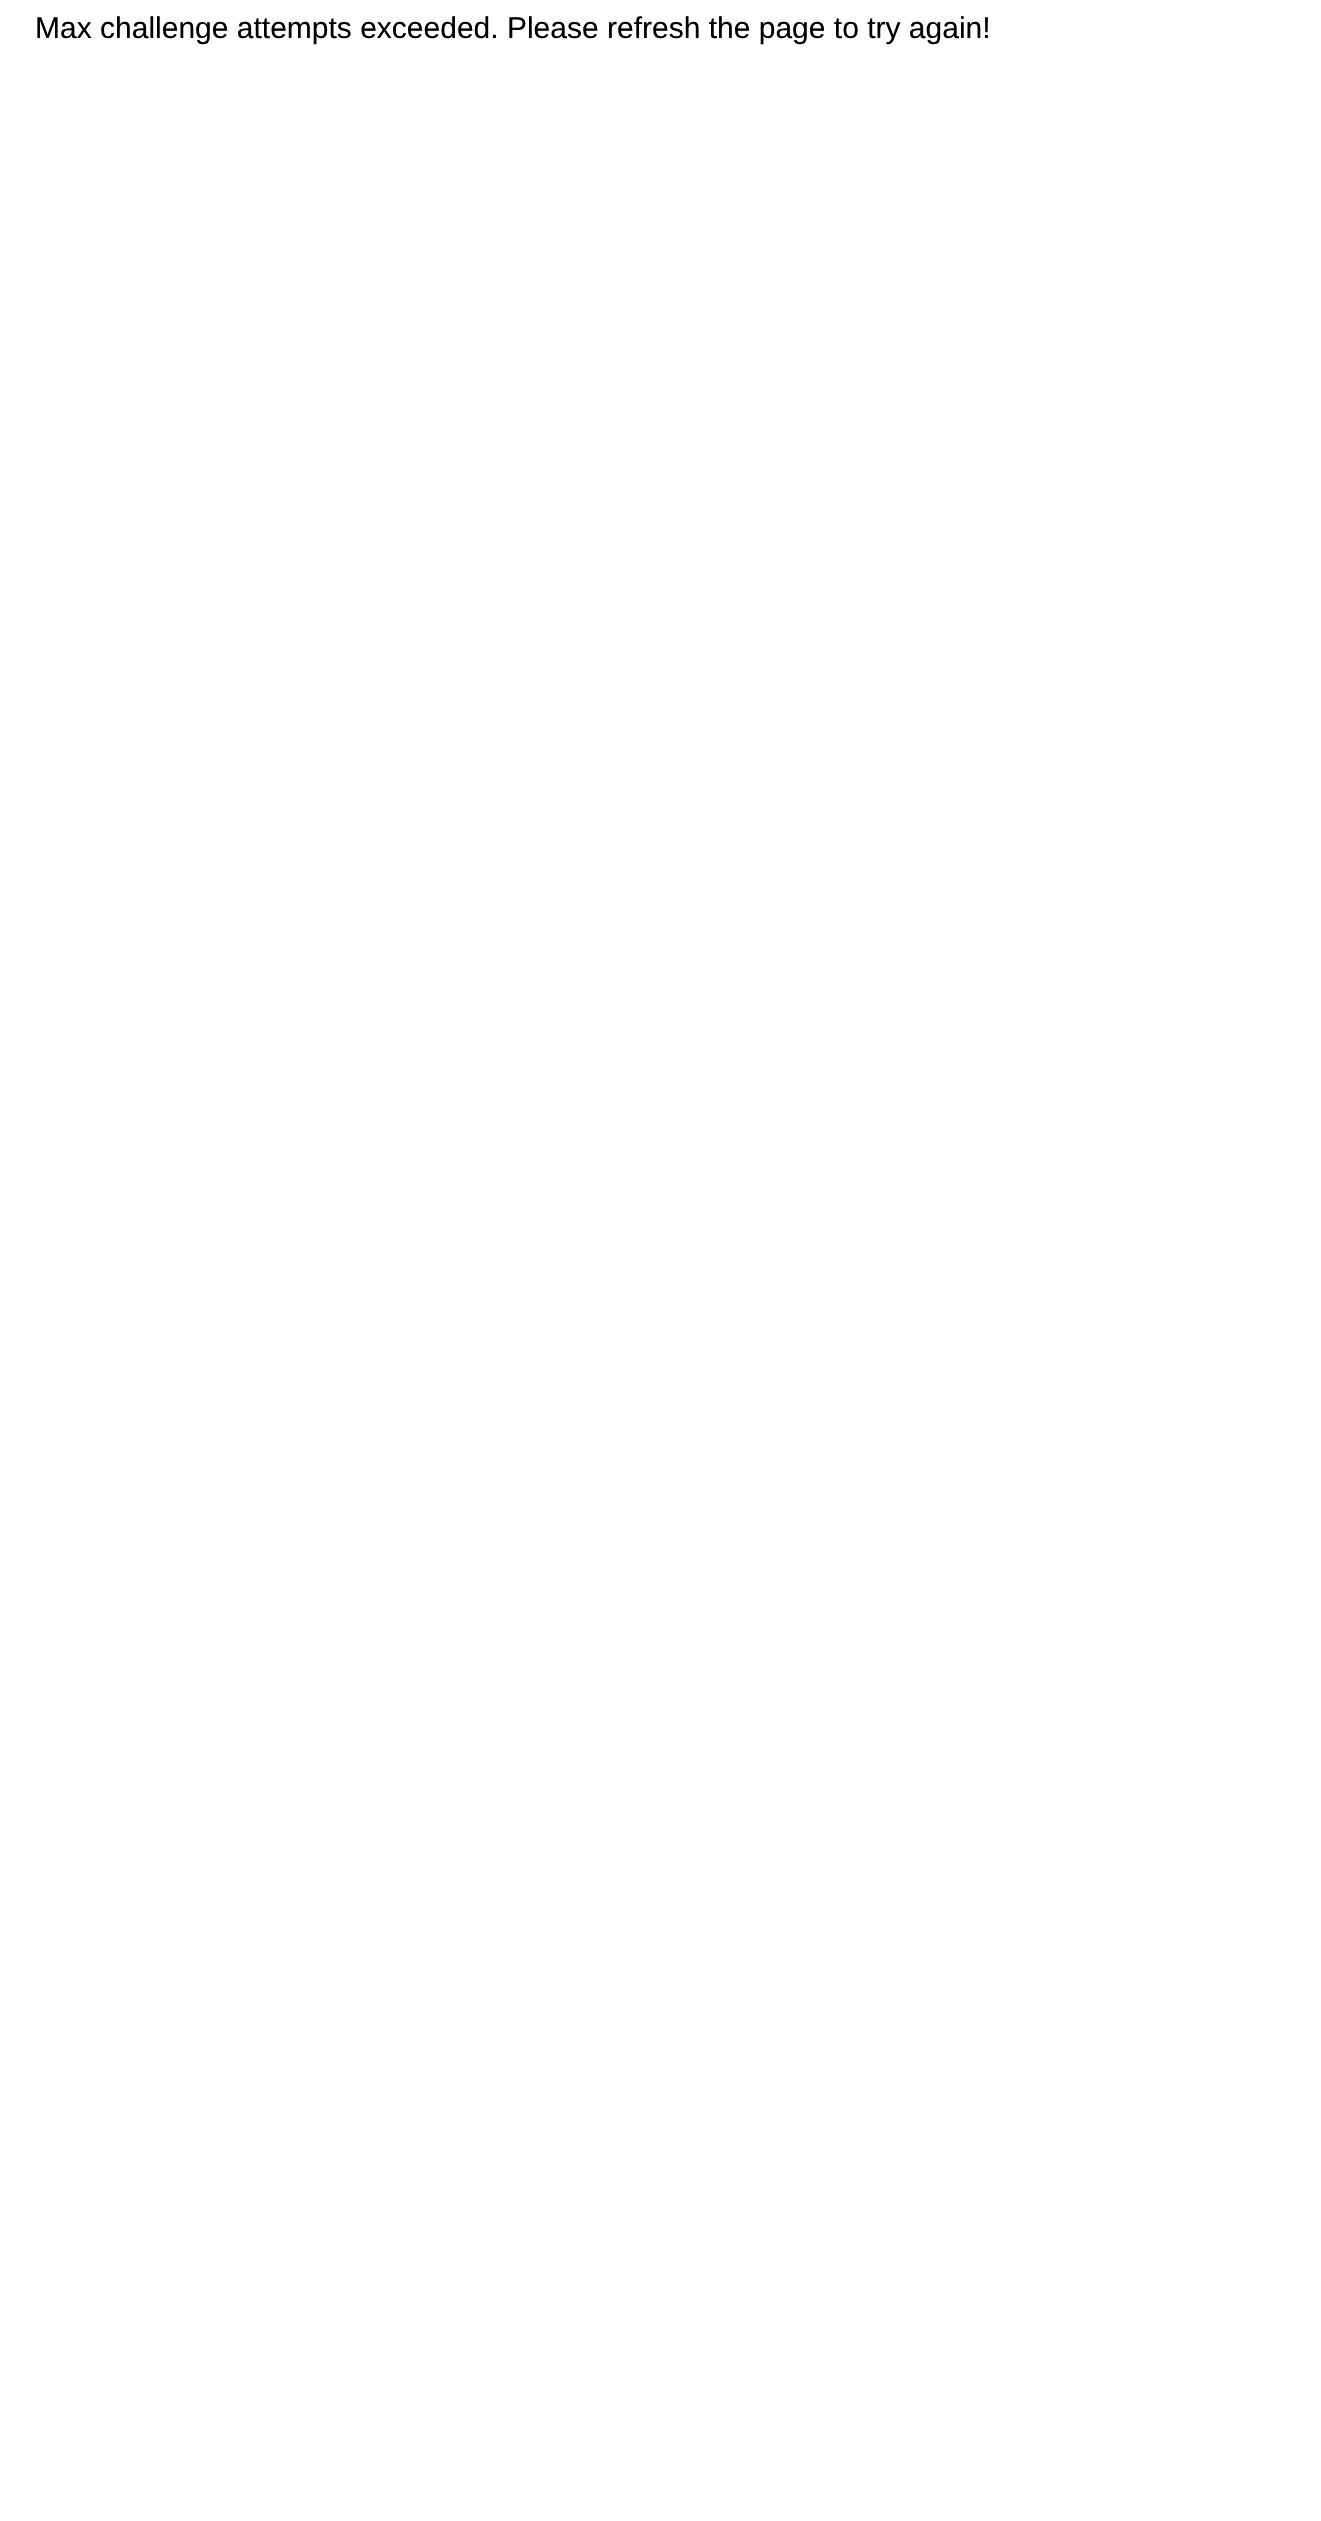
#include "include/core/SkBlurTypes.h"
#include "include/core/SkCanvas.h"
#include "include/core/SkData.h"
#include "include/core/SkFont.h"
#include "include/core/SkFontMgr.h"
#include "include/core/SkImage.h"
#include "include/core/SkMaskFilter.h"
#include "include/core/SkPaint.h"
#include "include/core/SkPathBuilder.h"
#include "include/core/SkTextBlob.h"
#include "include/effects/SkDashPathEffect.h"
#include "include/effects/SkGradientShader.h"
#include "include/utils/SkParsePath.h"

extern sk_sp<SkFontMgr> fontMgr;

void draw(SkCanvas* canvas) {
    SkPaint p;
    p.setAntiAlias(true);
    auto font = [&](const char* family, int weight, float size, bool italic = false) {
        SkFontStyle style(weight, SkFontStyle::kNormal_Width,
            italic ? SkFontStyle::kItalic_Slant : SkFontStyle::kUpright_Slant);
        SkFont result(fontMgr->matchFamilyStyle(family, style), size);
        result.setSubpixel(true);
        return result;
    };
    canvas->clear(0xFFFFFFFF);
    auto font1 = font("Liberation Sans", 400, 30);
    p.setColor(0xFF000000);
    canvas->drawString("Max challenge attempts exceeded. Please refresh the page to try again!", 35, 38, font1, p);
}
